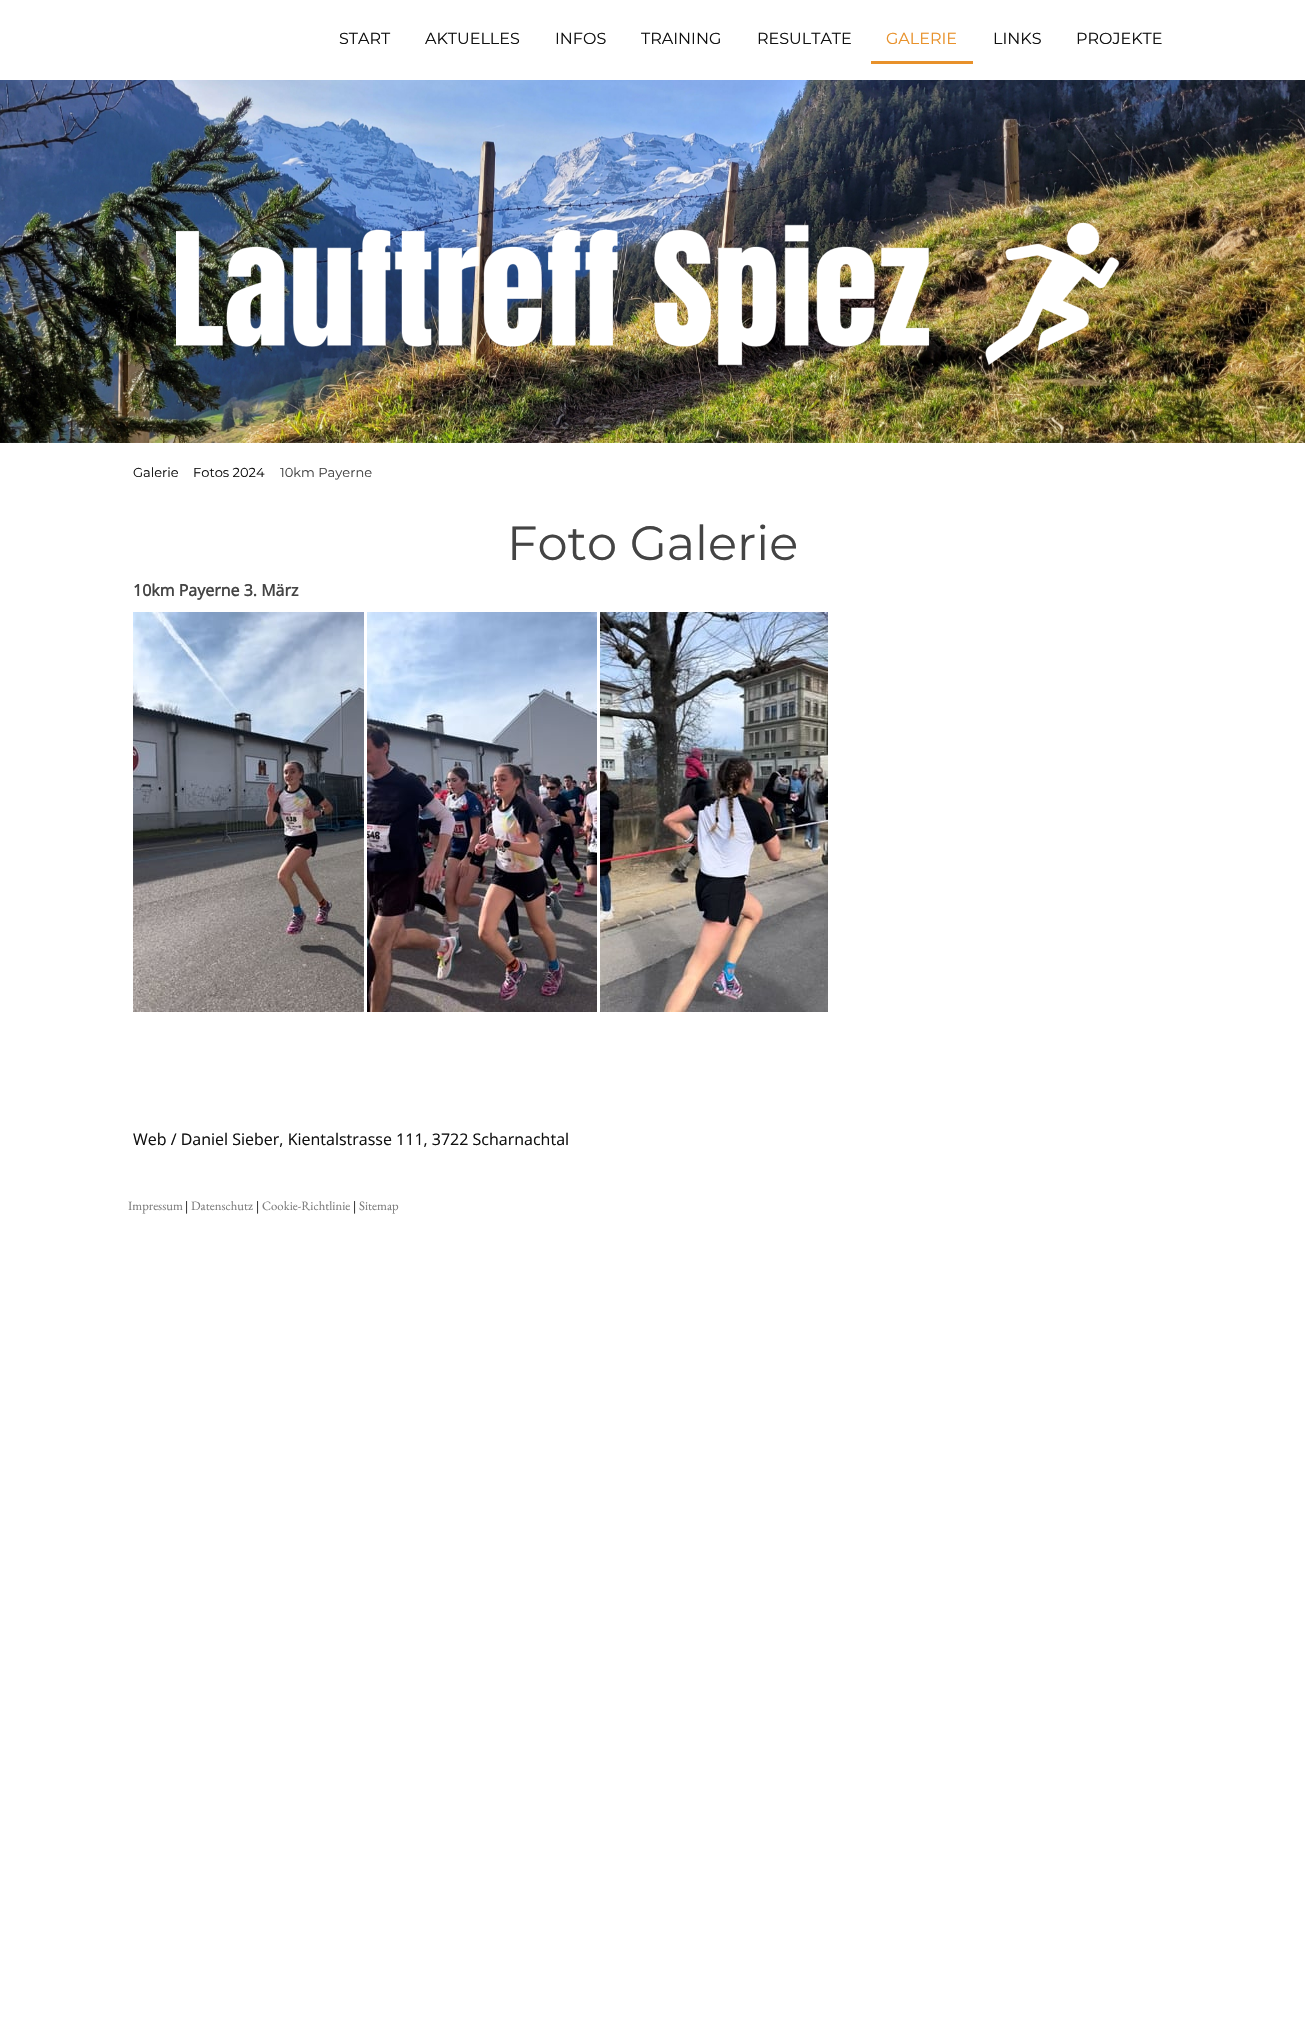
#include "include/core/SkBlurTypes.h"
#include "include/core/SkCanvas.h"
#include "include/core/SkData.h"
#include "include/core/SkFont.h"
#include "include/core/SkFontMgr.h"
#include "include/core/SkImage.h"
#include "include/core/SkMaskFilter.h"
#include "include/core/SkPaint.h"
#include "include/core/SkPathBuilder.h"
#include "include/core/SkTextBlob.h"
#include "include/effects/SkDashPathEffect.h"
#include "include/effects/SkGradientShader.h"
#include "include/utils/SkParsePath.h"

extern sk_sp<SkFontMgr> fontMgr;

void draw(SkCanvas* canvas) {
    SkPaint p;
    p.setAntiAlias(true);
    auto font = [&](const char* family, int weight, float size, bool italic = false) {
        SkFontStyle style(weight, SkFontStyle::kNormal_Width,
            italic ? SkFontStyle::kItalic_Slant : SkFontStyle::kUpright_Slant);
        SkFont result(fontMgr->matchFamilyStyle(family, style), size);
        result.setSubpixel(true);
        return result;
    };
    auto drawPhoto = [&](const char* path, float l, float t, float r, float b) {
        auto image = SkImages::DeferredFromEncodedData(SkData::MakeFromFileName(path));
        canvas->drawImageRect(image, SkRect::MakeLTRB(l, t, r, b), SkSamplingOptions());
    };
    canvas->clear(0xFFFFFFFF);
    auto font1 = font("Montserrat", 100, 16);
    p.setColor(0xFF111111);
    {
        const struct { const char* s; float x, y; } items[] = {
            {"START", 339, 44},
            {"AKTUELLES", 425, 44},
            {"INFOS", 555, 44},
            {"TRAINING", 641, 44},
            {"RESULTATE", 757, 44},
        };
        for (auto [s, x, y] : items) {
            canvas->drawString(s, x, y, font1, p);
        }
    }
    p.setColor(0xFFE8912A);
    canvas->drawRect(SkRect::MakeLTRB(871, 61, 973, 64), p);
    canvas->drawString("GALERIE", 886, 44, font1, p);
    p.setColor(0xFF111111);
    canvas->drawString("LINKS", 993, 44, font1, p);
    canvas->drawString("PROJEKTE", 1076, 44, font1, p);
    drawPhoto("media/1.png", 0, 80, 1305, 443);
    drawPhoto("media/2.png", 176, 222, 1120, 366);
    auto font2 = font("Montserrat", 100, 13);
    canvas->drawString("Galerie", 133, 477, font2, p);
    canvas->drawString("Fotos 2024", 193, 477, font2, p);
    p.setColor(0xFF444444);
    canvas->drawString("10km Payerne", 280, 477, font2, p);
    auto font3 = font("Montserrat", 100, 48);
    canvas->drawString("Foto Galerie", 507, 560, font3, p);
    auto font4 = font("Open Sans", 700, 16);
    canvas->drawString("10km Payerne 3. März", 133, 596, font4, p);
    drawPhoto("media/3.png", 133, 612, 364, 1012);
    drawPhoto("media/4.png", 367, 612, 597, 1012);
    drawPhoto("media/5.png", 600, 612, 828, 1012);
    auto font5 = font("Open Sans", 400, 16);
    p.setColor(0xFF111111);
    canvas->drawString("Web / Daniel Sieber, Kientalstrasse 111, 3722 Scharnachtal", 133, 1145, font5, p);
    auto font6 = font("EB Garamond", 400, 12.75f);
    p.setColor(0xFF7C7C7C);
    canvas->drawString("Impressum", 128, 1210, font6, p);
    p.setColor(0xFF111111);
    canvas->drawString("|", 185, 1210, font6, p);
    p.setColor(0xFF7C7C7C);
    canvas->drawString("Datenschutz", 191, 1210, font6, p);
    p.setColor(0xFF111111);
    canvas->drawString("|", 256, 1210, font6, p);
    p.setColor(0xFF7C7C7C);
    canvas->drawString("Cookie-Richtlinie", 262, 1210, font6, p);
    p.setColor(0xFF111111);
    canvas->drawString("|", 353, 1210, font6, p);
    p.setColor(0xFF7C7C7C);
    canvas->drawString("Sitemap", 359, 1210, font6, p);
}
